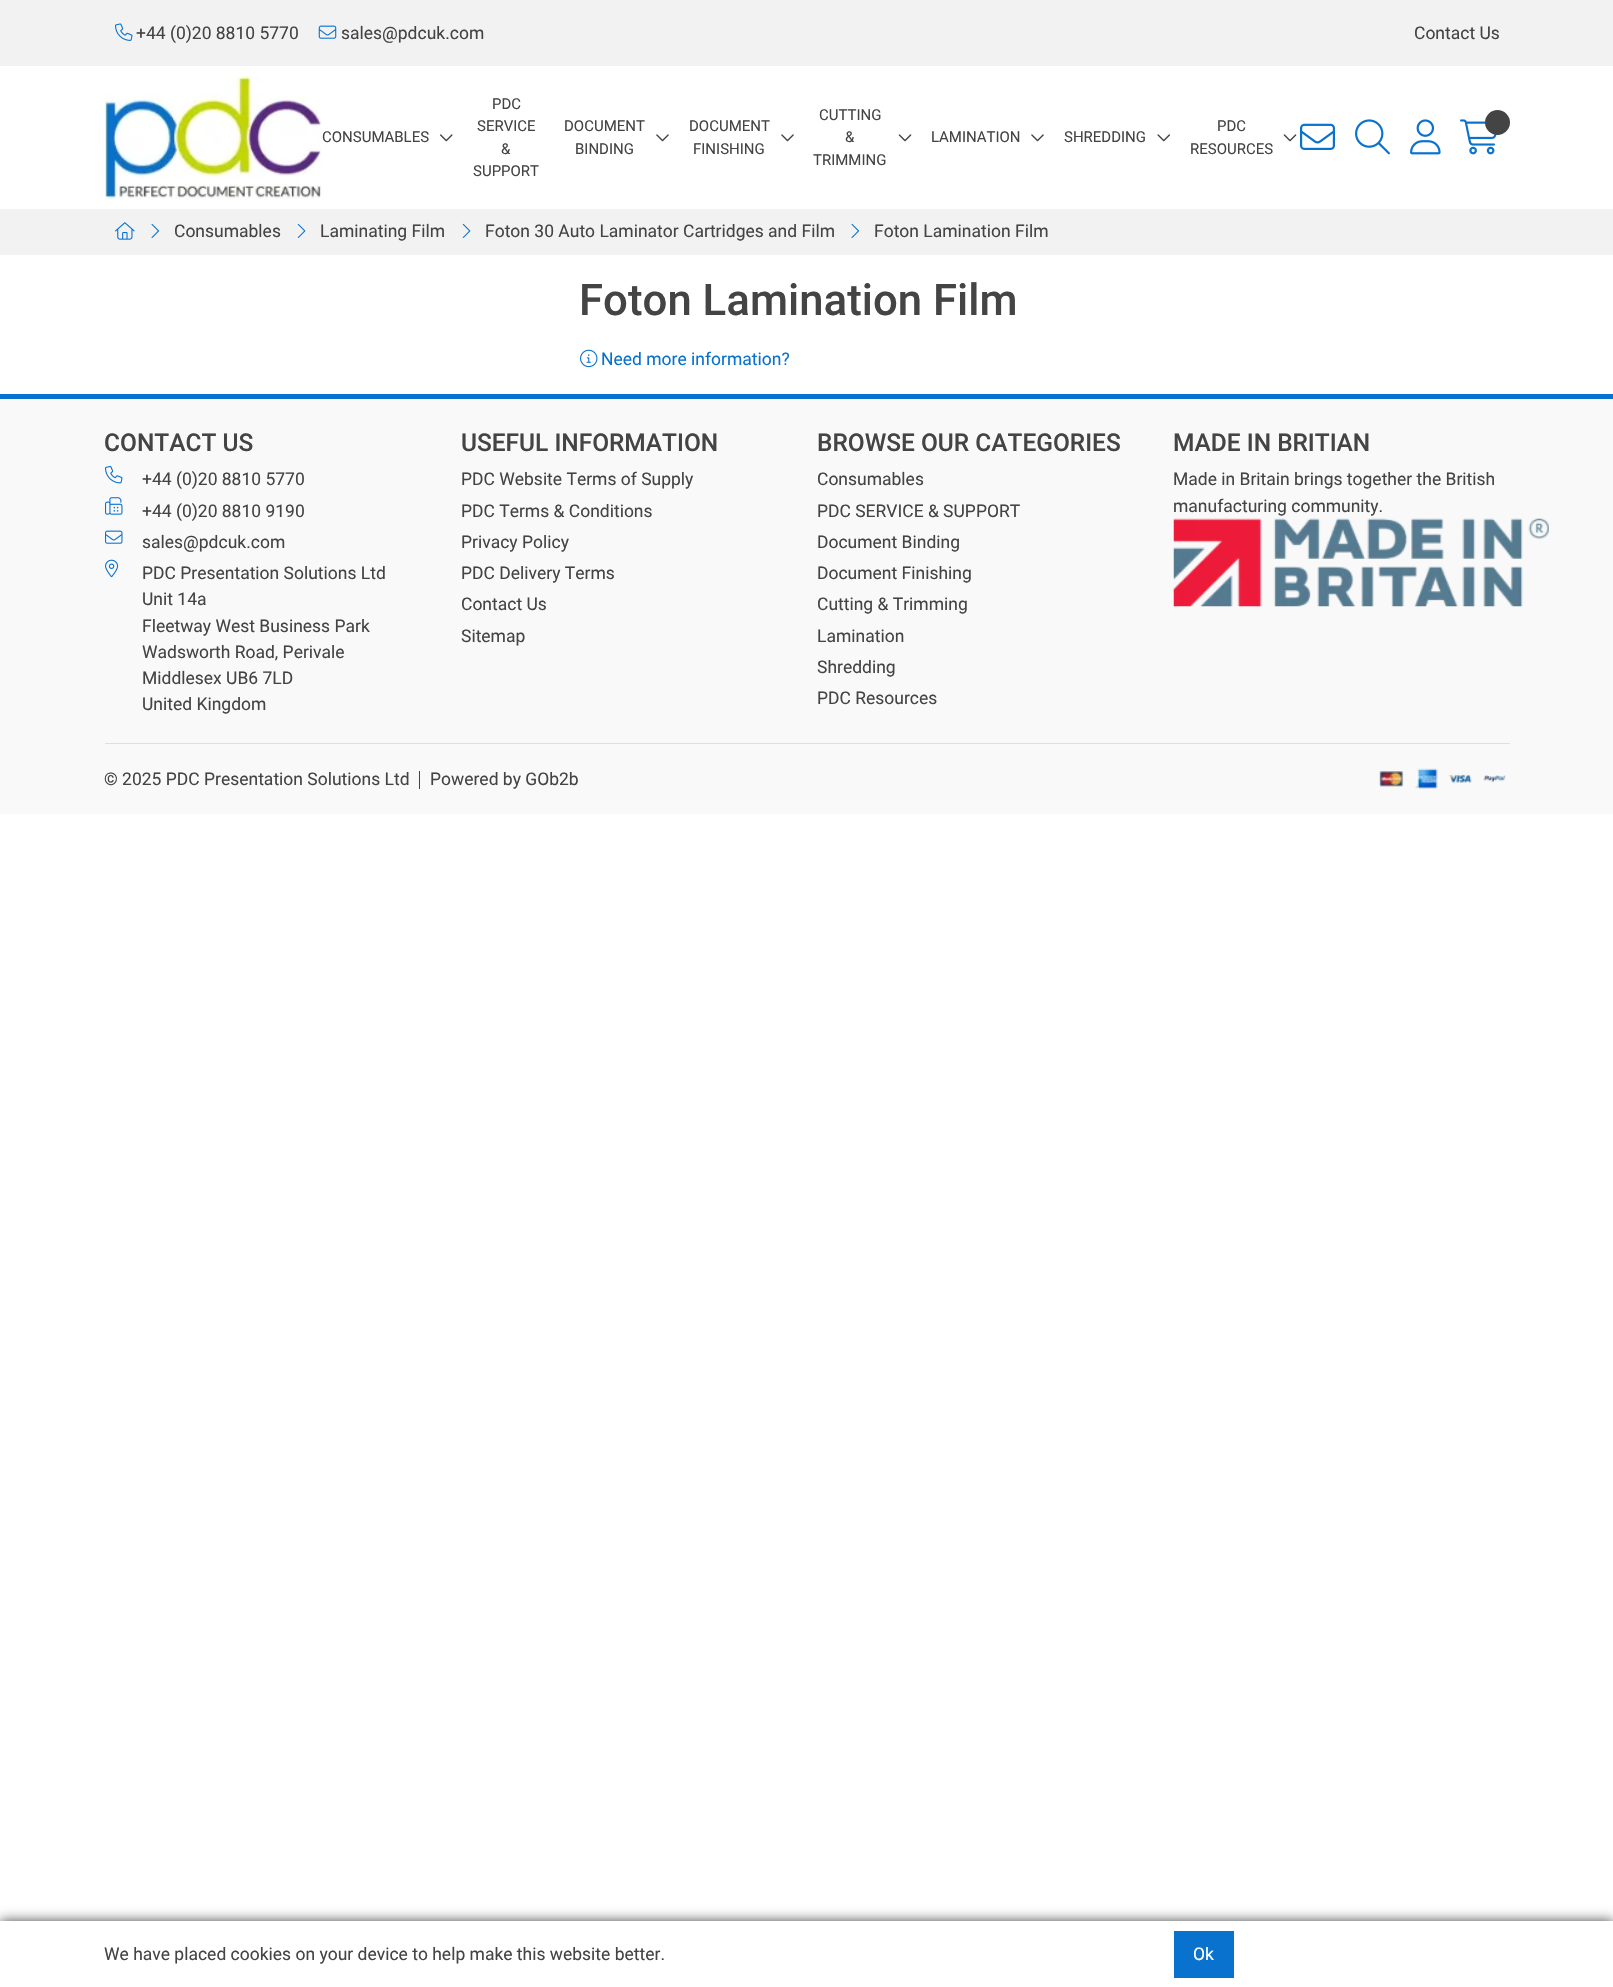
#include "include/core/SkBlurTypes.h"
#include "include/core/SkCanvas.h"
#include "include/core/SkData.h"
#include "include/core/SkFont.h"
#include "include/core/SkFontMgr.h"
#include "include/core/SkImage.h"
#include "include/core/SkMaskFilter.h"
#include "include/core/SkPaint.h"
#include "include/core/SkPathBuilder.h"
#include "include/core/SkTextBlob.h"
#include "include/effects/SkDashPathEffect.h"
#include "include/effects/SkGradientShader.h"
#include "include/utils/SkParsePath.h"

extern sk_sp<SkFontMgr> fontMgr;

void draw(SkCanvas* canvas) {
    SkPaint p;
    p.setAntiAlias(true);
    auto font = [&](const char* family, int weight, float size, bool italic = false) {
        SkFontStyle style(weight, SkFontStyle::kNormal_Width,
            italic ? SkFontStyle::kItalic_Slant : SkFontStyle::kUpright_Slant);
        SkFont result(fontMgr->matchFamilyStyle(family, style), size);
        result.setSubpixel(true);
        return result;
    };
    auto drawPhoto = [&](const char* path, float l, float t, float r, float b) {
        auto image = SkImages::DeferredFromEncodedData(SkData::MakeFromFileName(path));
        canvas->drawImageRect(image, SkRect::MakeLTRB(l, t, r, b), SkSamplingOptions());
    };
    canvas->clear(0xFFFFFFFF);
    p.setColor(0xFFF2F2F2);
    canvas->drawRect(SkRect::MakeLTRB(0, 0, 1613, 66), p);
    drawPhoto("media/1.png", 115, 23, 133, 41);
    auto font1 = font("Roboto", 400, 17.5f);
    p.setColor(0xFF444444);
    canvas->drawString("+44 (0)20 8810 5770", 136, 39, font1, p);
    drawPhoto("media/2.png", 318, 25, 337, 39);
    canvas->drawString("sales@pdcuk.com", 341, 39, font1, p);
    canvas->drawString("Contact Us", 1414, 39, font1, p);
    drawPhoto("media/3.png", 105, 76, 322, 199);
    auto font2 = font("Roboto", 400, 15);
    canvas->drawString("CONSUMABLES", 322, 142, font2, p);
    drawPhoto("media/4.png", 440, 134, 453, 142);
    {
        const struct { const char* s; float x, y; } items[] = {
            {"PDC", 492, 109},
            {"SERVICE", 477, 131},
            {"&", 501, 154},
            {"SUPPORT", 473, 176},
            {"DOCUMENT", 564, 131},
        };
        for (auto [s, x, y] : items) {
            canvas->drawString(s, x, y, font2, p);
        }
    }
    drawPhoto("media/5.png", 656, 134, 669, 142);
    canvas->drawString("BINDING", 575, 154, font2, p);
    canvas->drawString("DOCUMENT", 689, 131, font2, p);
    drawPhoto("media/5.png", 781, 134, 794, 142);
    {
        const struct { const char* s; float x, y; } items[] = {
            {"FINISHING", 693, 154},
            {"CUTTING", 819, 120},
            {"&", 845, 142},
        };
        for (auto [s, x, y] : items) {
            canvas->drawString(s, x, y, font2, p);
        }
    }
    drawPhoto("media/6.png", 898, 134, 912, 142);
    canvas->drawString("TRIMMING", 813, 165, font2, p);
    canvas->drawString("LAMINATION", 931, 142, font2, p);
    drawPhoto("media/5.png", 1031, 134, 1044, 142);
    canvas->drawString("SHREDDING", 1064, 142, font2, p);
    drawPhoto("media/7.png", 1157, 134, 1170, 142);
    canvas->drawString("PDC", 1217, 131, font2, p);
    drawPhoto("media/6.png", 1283, 134, 1297, 142);
    canvas->drawString("RESOURCES", 1190, 154, font2, p);
    drawPhoto("media/8.png", 1300, 123, 1335, 150);
    drawPhoto("media/9.png", 1355, 119, 1390, 155);
    drawPhoto("media/10.png", 1410, 119, 1441, 155);
    drawPhoto("media/11.png", 1460, 119, 1497, 155);
    canvas->drawCircle(1497.5f, 122.5f, 12.5f, p);
    p.setColor(0xFFF2F2F2);
    canvas->drawRect(SkRect::MakeLTRB(0, 209, 1613, 255), p);
    drawPhoto("media/12.png", 115, 222, 135, 240);
    drawPhoto("media/13.png", 151, 223, 160, 238);
    p.setColor(0xFF444444);
    canvas->drawString("Consumables", 174, 237, font1, p);
    drawPhoto("media/14.png", 297, 223, 306, 238);
    canvas->drawString("Laminating Film", 320, 237, font1, p);
    drawPhoto("media/14.png", 462, 223, 471, 238);
    canvas->drawString("Foton 30 Auto Laminator Cartridges and Film", 485, 237, font1, p);
    drawPhoto("media/13.png", 851, 223, 860, 238);
    canvas->drawString("Foton Lamination Film", 874, 237, font1, p);
    auto font3 = font("Roboto", 500, 43.75f);
    canvas->drawString("Foton Lamination Film", 579, 315, font3, p);
    drawPhoto("media/15.png", 580, 349, 598, 368);
    p.setColor(0xFF0971CE);
    canvas->drawString("Need more information?", 601, 365, font1, p);
    p.setColor(0xFFF9F9F9);
    canvas->drawRect(SkRect::MakeLTRB(0, 399, 1613, 814), p);
    p.setColor(0xFF0971CE);
    canvas->drawRect(SkRect::MakeLTRB(0, 394, 1613, 399), p);
    auto font4 = font("Roboto", 500, 24.5f);
    p.setColor(0xFF444444);
    canvas->drawString("CONTACT US", 104, 451, font4, p);
    drawPhoto("media/16.png", 105, 465, 123, 484);
    canvas->drawString("+44 (0)20 8810 5770", 142, 485, font1, p);
    drawPhoto("media/17.png", 105, 497, 123, 515);
    canvas->drawString("+44 (0)20 8810 9190", 142, 517, font1, p);
    drawPhoto("media/18.png", 105, 530, 123, 544);
    canvas->drawString("sales@pdcuk.com", 142, 548, font1, p);
    drawPhoto("media/19.png", 105, 559, 119, 578);
    {
        const struct { const char* s; float x, y; } items[] = {
            {"PDC Presentation Solutions Ltd", 142, 579},
            {"Unit 14a", 142, 605},
            {"Fleetway West Business Park", 142, 632},
            {"Wadsworth Road, Perivale", 142, 658},
            {"Middlesex UB6 7LD", 142, 684},
            {"United Kingdom", 142, 710},
        };
        for (auto [s, x, y] : items) {
            canvas->drawString(s, x, y, font1, p);
        }
    }
    canvas->drawString("USEFUL INFORMATION", 461, 451, font4, p);
    {
        const struct { const char* s; float x, y; } items[] = {
            {"PDC Website Terms of Supply", 461, 485},
            {"PDC Terms & Conditions", 461, 517},
            {"Privacy Policy", 461, 548},
            {"PDC Delivery Terms", 461, 579},
            {"Contact Us", 461, 610},
            {"Sitemap", 461, 642},
        };
        for (auto [s, x, y] : items) {
            canvas->drawString(s, x, y, font1, p);
        }
    }
    canvas->drawString("BROWSE OUR CATEGORIES", 817, 451, font4, p);
    {
        const struct { const char* s; float x, y; } items[] = {
            {"Consumables", 817, 485},
            {"PDC SERVICE & SUPPORT", 817, 517},
            {"Document Binding", 817, 548},
            {"Document Finishing", 817, 579},
            {"Cutting & Trimming", 817, 610},
            {"Lamination", 817, 642},
            {"Shredding", 817, 673},
            {"PDC Resources", 817, 704},
        };
        for (auto [s, x, y] : items) {
            canvas->drawString(s, x, y, font1, p);
        }
    }
    canvas->drawString("MADE IN BRITIAN", 1173, 451, font4, p);
    canvas->drawString("Made in Britain brings together the British", 1173, 485, font1, p);
    canvas->drawString("manufacturing community.", 1173, 512, font1, p);
    drawPhoto("media/20.png", 1173, 518, 1549, 607);
    p.setColor(0xFFE0E0E0);
    canvas->drawRect(SkRect::MakeLTRB(105, 743, 1510, 744), p);
    p.setColor(0xFF444444);
    canvas->drawString("© 2025 PDC Presentation Solutions Ltd", 104, 785, font1, p);
    canvas->drawRect(SkRect::MakeLTRB(419, 771, 420, 789), p);
    canvas->drawString("Powered by GOb2b", 430, 785, font1, p);
    drawPhoto("media/21.png", 1379, 771, 1404, 787);
    drawPhoto("media/22.png", 1415, 768, 1438, 789);
    drawPhoto("media/23.png", 1448, 774, 1472, 783);
    drawPhoto("media/24.png", 1483, 775, 1506, 783);
    p.setMaskFilter(SkMaskFilter::MakeBlur(kNormal_SkBlurStyle, 6));
    canvas->drawRect(SkRect::MakeLTRB(0, 1921, 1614, 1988), p);
    p.setMaskFilter(nullptr);
    p.setColor(0xFFFFFFFF);
    canvas->drawRect(SkRect::MakeLTRB(0, 1921, 1613, 1987), p);
    p.setColor(0xFF444444);
    canvas->drawString("We have placed cookies on your device to help make this website better.", 104, 1960, font1, p);
    p.setColor(0xFF0971CE);
    canvas->drawRect(SkRect::MakeLTRB(1174, 1931, 1234, 1978), p);
    p.setColor(0xFFFFFFFF);
    canvas->drawString("Ok", 1193, 1960, font1, p);
}
